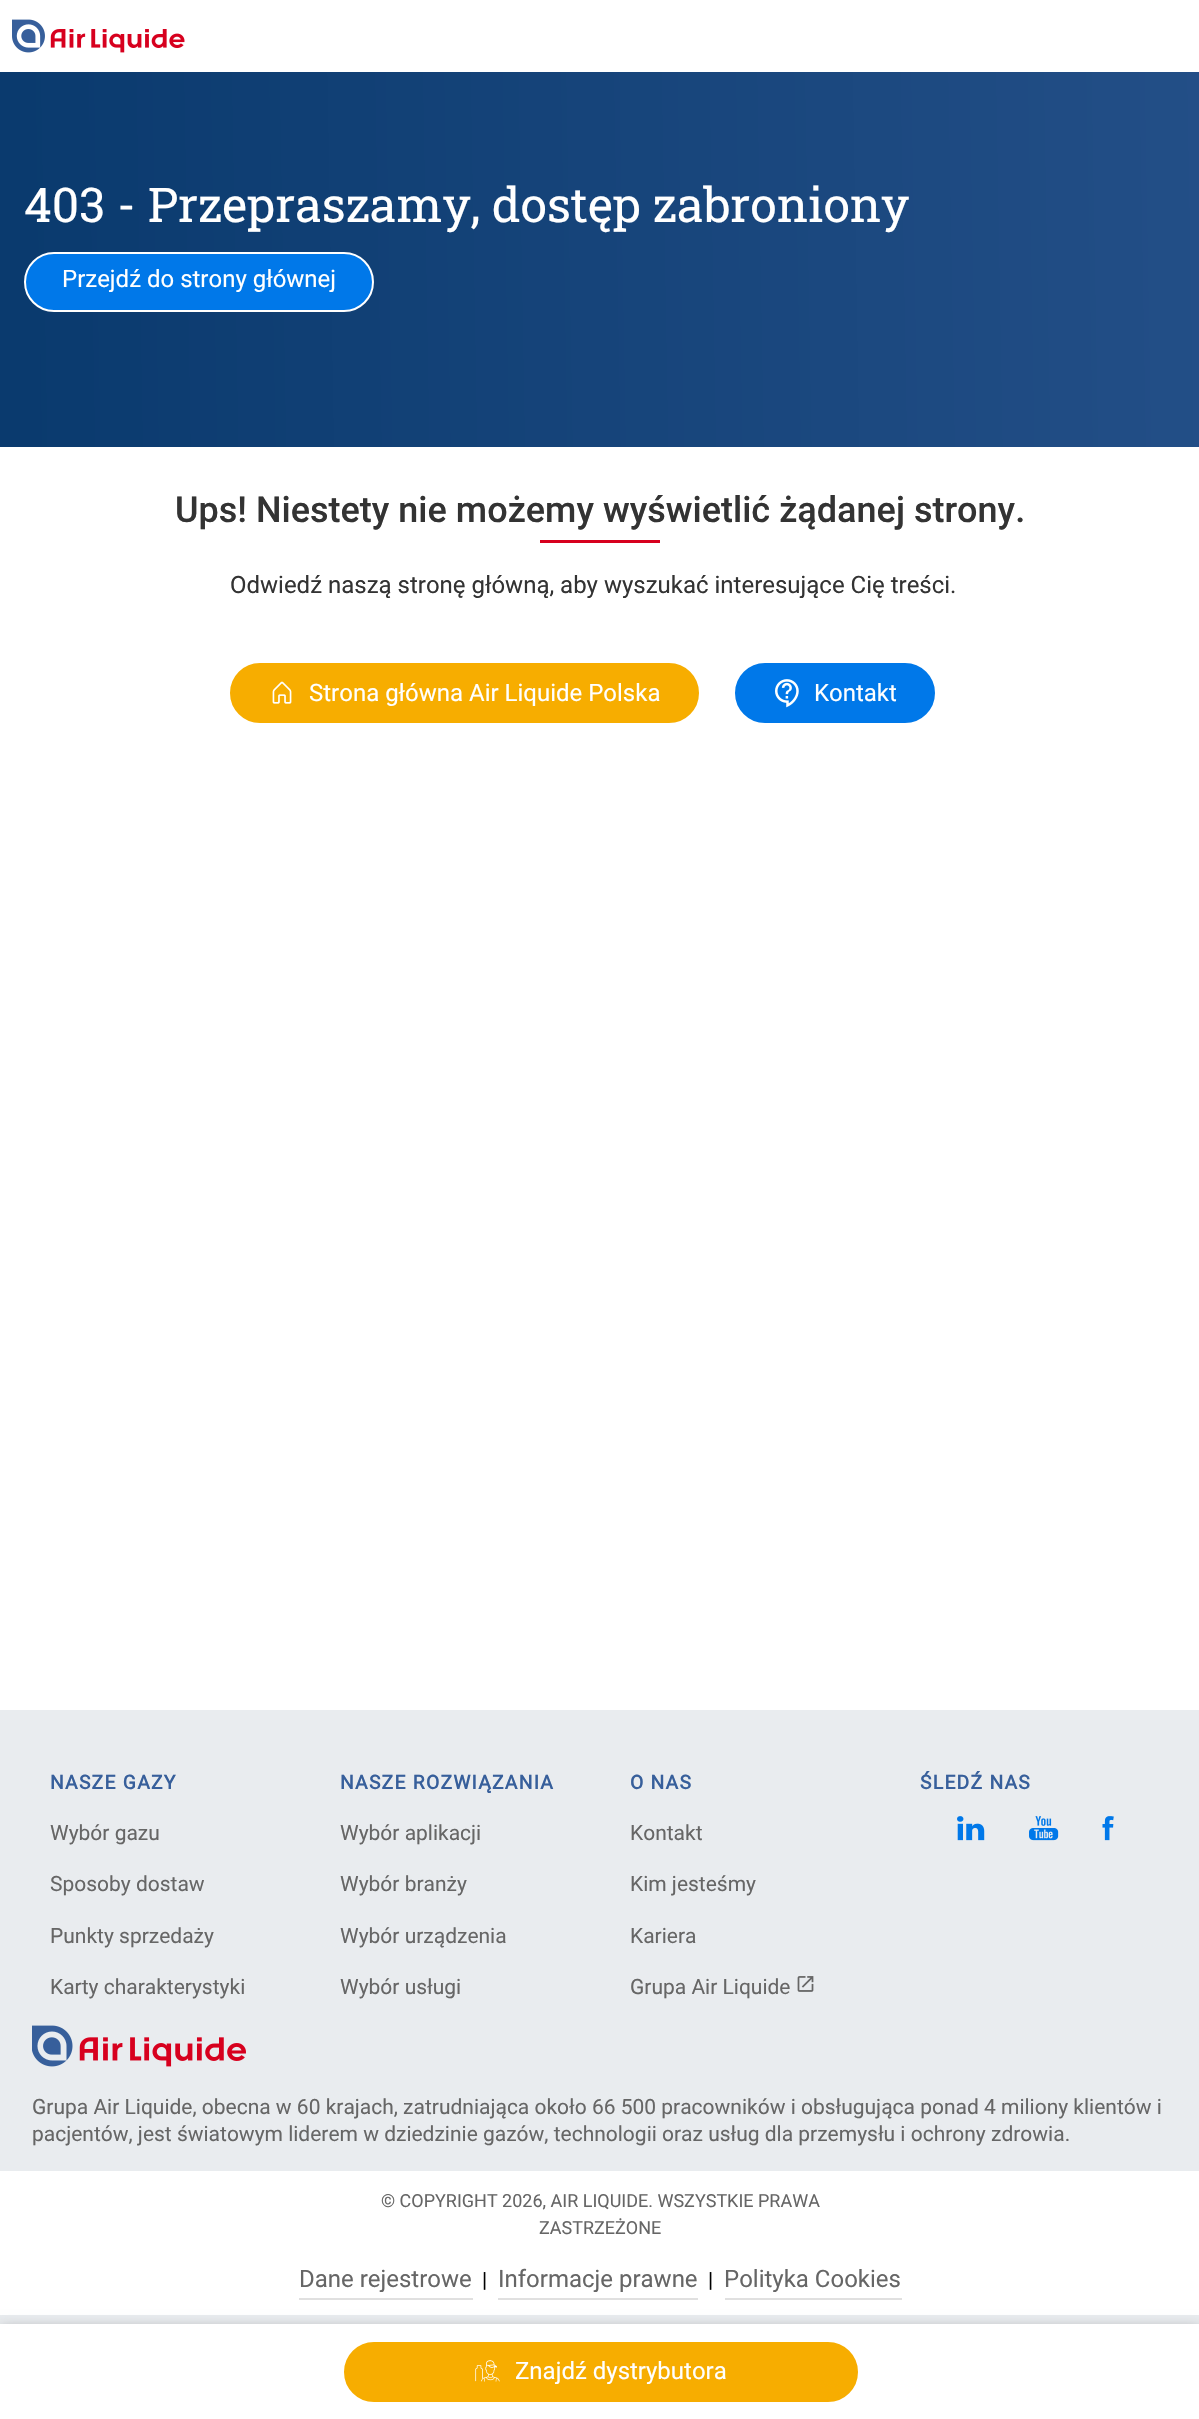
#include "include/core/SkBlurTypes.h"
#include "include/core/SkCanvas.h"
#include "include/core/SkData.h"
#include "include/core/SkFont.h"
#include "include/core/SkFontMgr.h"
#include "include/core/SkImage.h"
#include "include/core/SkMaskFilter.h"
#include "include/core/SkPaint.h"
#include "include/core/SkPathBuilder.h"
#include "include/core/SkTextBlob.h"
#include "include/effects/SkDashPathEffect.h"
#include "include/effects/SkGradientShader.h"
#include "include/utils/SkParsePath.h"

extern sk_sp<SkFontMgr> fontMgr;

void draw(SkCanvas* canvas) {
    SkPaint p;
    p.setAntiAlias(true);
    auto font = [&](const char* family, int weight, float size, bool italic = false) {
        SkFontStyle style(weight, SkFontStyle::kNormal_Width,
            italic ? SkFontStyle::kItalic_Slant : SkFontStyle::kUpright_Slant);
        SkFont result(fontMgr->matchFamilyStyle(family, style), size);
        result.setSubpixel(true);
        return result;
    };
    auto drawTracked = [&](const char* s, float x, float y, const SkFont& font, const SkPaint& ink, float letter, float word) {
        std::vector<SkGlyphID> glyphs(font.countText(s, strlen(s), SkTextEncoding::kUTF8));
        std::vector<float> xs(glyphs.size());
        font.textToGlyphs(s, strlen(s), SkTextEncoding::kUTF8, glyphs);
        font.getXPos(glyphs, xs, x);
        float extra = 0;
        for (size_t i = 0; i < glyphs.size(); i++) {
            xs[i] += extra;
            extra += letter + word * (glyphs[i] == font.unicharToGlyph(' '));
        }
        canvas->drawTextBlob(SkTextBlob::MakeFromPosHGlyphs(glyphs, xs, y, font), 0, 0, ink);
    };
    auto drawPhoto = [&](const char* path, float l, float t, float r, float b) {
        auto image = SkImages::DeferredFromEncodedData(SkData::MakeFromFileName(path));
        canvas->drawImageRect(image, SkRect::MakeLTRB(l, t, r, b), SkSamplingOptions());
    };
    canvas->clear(0xFFFFFFFF);
    {
        const SkColor colors[] = {0xFF003264, 0xFF375F9B};
        const float stops[] = {0, 1};
        const SkPoint ends[] = {{-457, 278}, {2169, 232}};
        p.setShader(SkGradientShader::MakeLinear(ends, colors, stops, 2, SkTileMode::kClamp));
        p.setAlpha(255);
    }
    canvas->drawRect(SkRect::MakeLTRB(0, 72, 1199, 447), p);
    auto font1 = font("Roboto Slab", 400, 48);
    p.setShader(nullptr);
    p.setColor(0xFFFFFFFF);
    canvas->drawString("403 - Przepraszamy, dostęp zabroniony", 24, 222, font1, p);
    p.setColor(0xFF0078E9);
    canvas->drawRoundRect(SkRect::MakeLTRB(25, 253, 373, 311), 29, 29, p);
    p.setStyle(SkPaint::kStroke_Style);
    p.setStrokeWidth(2);
    p.setColor(0xFFFFFFFF);
    canvas->drawRoundRect(SkRect::MakeLTRB(25, 253, 373, 311), 29, 29, p);
    auto font2 = font("Roboto", 400, 24);
    p.setStyle(SkPaint::kFill_Style);
    canvas->drawString("Przejdź do strony głównej", 62, 287, font2, p);
    auto font3 = font("Roboto", 500, 36);
    p.setColor(0xFF333333);
    canvas->drawString("Ups! Niestety nie możemy wyświetlić żądanej strony.", 175, 522, font3, p);
    p.setColor(0xFFD7001E);
    canvas->drawRect(SkRect::MakeLTRB(540, 540, 660, 543), p);
    p.setColor(0xFF333333);
    canvas->drawString("Odwiedź naszą stronę główną, aby wyszukać interesujące Cię treści.", 230, 593, font2, p);
    p.setColor(0xFFF7AD00);
    canvas->drawRoundRect(SkRect::MakeLTRB(231, 664, 698, 722), 29, 29, p);
    p.setStyle(SkPaint::kStroke_Style);
    canvas->drawRoundRect(SkRect::MakeLTRB(231, 664, 698, 722), 29, 29, p);
    drawPhoto("media/1.png", 272, 681, 292, 704);
    p.setStyle(SkPaint::kFill_Style);
    p.setColor(0xFFFFFFFF);
    canvas->drawString("Strona główna Air Liquide Polska", 309, 701, font2, p);
    p.setColor(0xFF0078E9);
    canvas->drawRoundRect(SkRect::MakeLTRB(736, 664, 934, 722), 29, 29, p);
    p.setStyle(SkPaint::kStroke_Style);
    canvas->drawRoundRect(SkRect::MakeLTRB(736, 664, 934, 722), 29, 29, p);
    drawPhoto("media/2.png", 775, 679, 799, 708);
    p.setStyle(SkPaint::kFill_Style);
    p.setColor(0xFFFFFFFF);
    canvas->drawString("Kontakt", 814, 701, font2, p);
    p.setColor(0xFFE9ECEF);
    canvas->drawRect(SkRect::MakeLTRB(0, 1710, 1199, 2324), p);
    auto font4 = font("Roboto", 700, 19.25f);
    p.setColor(0xFF375F9B);
    drawTracked("NASZE GAZY", 50, 1789, font4, p, 1.3f, 0);
    auto font5 = font("Roboto", 400, 21);
    p.setColor(0xFF666666);
    {
        const struct { const char* s; float x, y; } items[] = {
            {"Wybór gazu", 50, 1840},
            {"Sposoby dostaw", 50, 1891},
            {"Punkty sprzedaży", 50, 1943},
            {"Karty charakterystyki", 50, 1994},
        };
        for (auto [s, x, y] : items) {
            canvas->drawString(s, x, y, font5, p);
        }
    }
    p.setColor(0xFF375F9B);
    drawTracked("NASZE ROZWIĄZANIA", 340, 1789, font4, p, 1.3f, 0);
    p.setColor(0xFF666666);
    {
        const struct { const char* s; float x, y; } items[] = {
            {"Wybór aplikacji", 340, 1840},
            {"Wybór branży", 340, 1891},
            {"Wybór urządzenia", 340, 1943},
            {"Wybór usługi", 340, 1994},
        };
        for (auto [s, x, y] : items) {
            canvas->drawString(s, x, y, font5, p);
        }
    }
    p.setColor(0xFF375F9B);
    drawTracked("O NAS", 630, 1789, font4, p, 1.3f, 0);
    p.setColor(0xFF666666);
    {
        const struct { const char* s; float x, y; } items[] = {
            {"Kontakt", 630, 1840},
            {"Kim jesteśmy", 630, 1891},
            {"Kariera", 630, 1943},
            {"Grupa Air Liquide", 630, 1994},
        };
        for (auto [s, x, y] : items) {
            canvas->drawString(s, x, y, font5, p);
        }
    }
    drawPhoto("media/3.png", 797, 1976, 814, 1992);
    p.setColor(0xFF375F9B);
    drawTracked("ŚLEDŹ NAS", 920, 1789, font4, p, 1.3f, 0);
    drawPhoto("media/4.png", 957, 1816, 985, 1841);
    drawPhoto("media/5.png", 1029, 1816, 1059, 1841);
    drawPhoto("media/6.png", 1102, 1816, 1114, 1841);
    drawPhoto("media/7.png", 32, 2025, 246, 2067);
    p.setColor(0xFF666666);
    canvas->drawString("Grupa Air Liquide, obecna w 60 krajach, zatrudniająca około 66 500 pracowników i obsługująca ponad 4 miliony klientów i", 32, 2114, font5, p);
    canvas->drawString("pacjentów, jest światowym liderem w dziedzinie gazów, technologii oraz usług dla przemysłu i ochrony zdrowia.", 32, 2141, font5, p);
    p.setColor(0xFFFFFFFF);
    canvas->drawRect(SkRect::MakeLTRB(0, 2171, 1199, 2315), p);
    auto font6 = font("Roboto", 400, 18);
    p.setColor(0xFF666666);
    canvas->drawString("© COPYRIGHT 2026, AIR LIQUIDE. WSZYSTKIE PRAWA", 381, 2207, font6, p);
    canvas->drawString("ZASTRZEŻONE", 539, 2234, font6, p);
    canvas->drawString("Dane rejestrowe", 299, 2287, font2, p);
    p.setColor(0xFFE0E0E0);
    canvas->drawRect(SkRect::MakeLTRB(299, 2298, 473, 2300), p);
    p.setColor(0xFF000000);
    canvas->drawString("|", 482, 2287, font5, p);
    p.setColor(0xFF666666);
    canvas->drawString("Informacje prawne", 498, 2287, font2, p);
    p.setColor(0xFFE0E0E0);
    canvas->drawRect(SkRect::MakeLTRB(498, 2298, 698, 2300), p);
    p.setColor(0xFF000000);
    canvas->drawString("|", 708, 2287, font5, p);
    p.setColor(0xFF666666);
    canvas->drawString("Polityka Cookies", 724, 2287, font2, p);
    p.setColor(0xFFE0E0E0);
    canvas->drawRect(SkRect::MakeLTRB(725, 2298, 902, 2300), p);
    drawPhoto("media/8.png", 12, 19, 185, 53);
    p.setColor(0x40000000);
    p.setMaskFilter(SkMaskFilter::MakeBlur(kNormal_SkBlurStyle, 6));
    canvas->drawRect(SkRect::MakeLTRB(0, 2327, 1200, 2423), p);
    p.setMaskFilter(nullptr);
    p.setColor(0xFFFFFFFF);
    canvas->drawRect(SkRect::MakeLTRB(0, 2324, 1199, 2419), p);
    p.setColor(0xFFF7AD00);
    canvas->drawRoundRect(SkRect::MakeLTRB(345, 2343, 857, 2401), 29, 29, p);
    p.setStyle(SkPaint::kStroke_Style);
    canvas->drawRoundRect(SkRect::MakeLTRB(345, 2343, 857, 2401), 29, 29, p);
    drawPhoto("media/9.png", 475, 2360, 500, 2382);
    p.setStyle(SkPaint::kFill_Style);
    p.setColor(0xFFFFFFFF);
    canvas->drawString("Znajdź dystrybutora", 515, 2379, font2, p);
}
